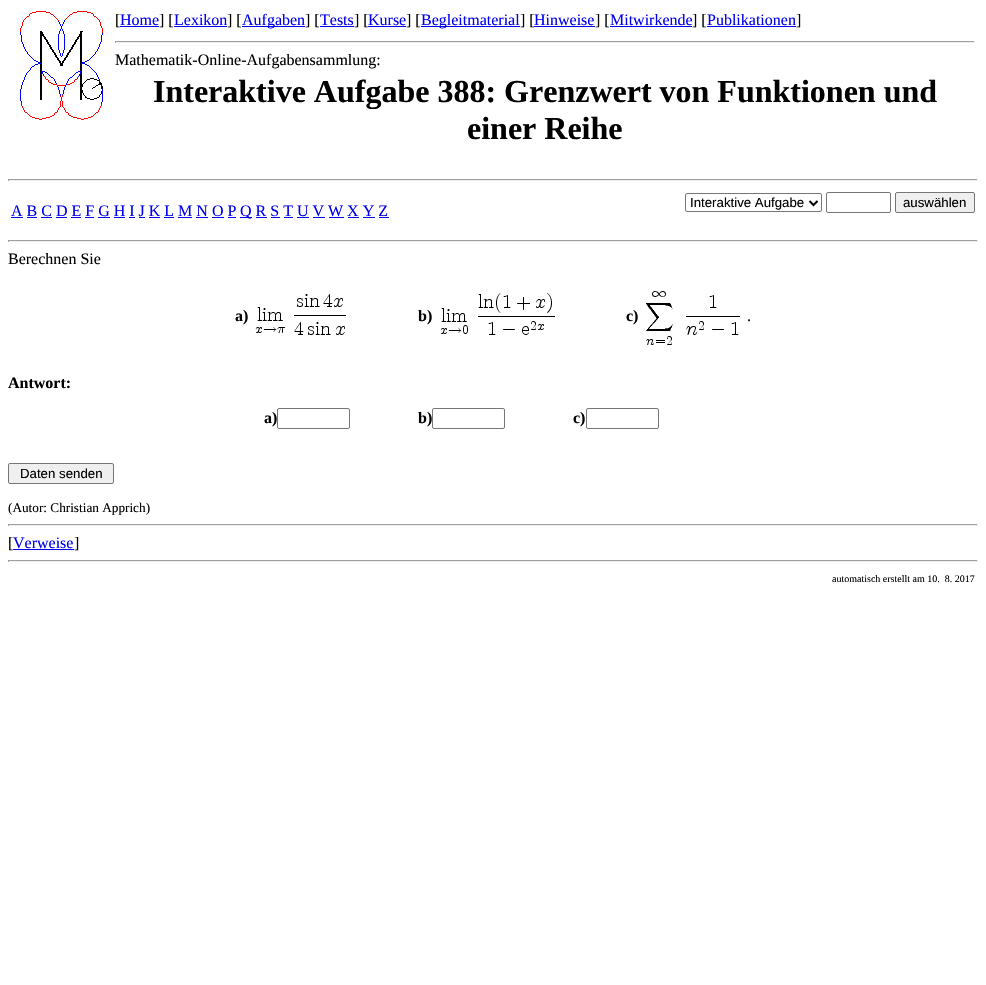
#include "include/core/SkBlurTypes.h"
#include "include/core/SkCanvas.h"
#include "include/core/SkData.h"
#include "include/core/SkFont.h"
#include "include/core/SkFontMgr.h"
#include "include/core/SkImage.h"
#include "include/core/SkMaskFilter.h"
#include "include/core/SkPaint.h"
#include "include/core/SkPathBuilder.h"
#include "include/core/SkTextBlob.h"
#include "include/effects/SkDashPathEffect.h"
#include "include/effects/SkGradientShader.h"
#include "include/utils/SkParsePath.h"

extern sk_sp<SkFontMgr> fontMgr;

void draw(SkCanvas* canvas) {
    SkPaint p;
    p.setAntiAlias(true);
    auto font = [&](const char* family, int weight, float size, bool italic = false) {
        SkFontStyle style(weight, SkFontStyle::kNormal_Width,
            italic ? SkFontStyle::kItalic_Slant : SkFontStyle::kUpright_Slant);
        SkFont result(fontMgr->matchFamilyStyle(family, style), size);
        result.setSubpixel(true);
        return result;
    };
    auto drawPhoto = [&](const char* path, float l, float t, float r, float b) {
        auto image = SkImages::DeferredFromEncodedData(SkData::MakeFromFileName(path));
        canvas->drawImageRect(image, SkRect::MakeLTRB(l, t, r, b), SkSamplingOptions());
    };
    canvas->clear(0xFFFFFFFF);
    drawPhoto("media/1.png", 20, 11, 103, 120);
    auto font1 = font("Liberation Serif", 400, 16);
    p.setColor(0xFF000000);
    canvas->drawString("[", 115, 25, font1, p);
    p.setColor(0xFF0000EE);
    canvas->drawString("Home", 120, 25, font1, p);
    canvas->drawRect(SkRect::MakeLTRB(120, 26, 159, 27), p);
    p.setColor(0xFF000000);
    canvas->drawString("] [", 159, 25, font1, p);
    p.setColor(0xFF0000EE);
    canvas->drawString("Lexikon", 174, 25, font1, p);
    canvas->drawRect(SkRect::MakeLTRB(174, 26, 227, 27), p);
    p.setColor(0xFF000000);
    canvas->drawString("] [", 227, 25, font1, p);
    p.setColor(0xFF0000EE);
    canvas->drawRect(SkRect::MakeLTRB(242, 26, 305, 27), p);
    canvas->drawString("Aufgaben", 242, 25, font1, p);
    p.setColor(0xFF000000);
    canvas->drawString("] [", 305, 25, font1, p);
    p.setColor(0xFF0000EE);
    canvas->drawString("Tests", 320, 25, font1, p);
    canvas->drawRect(SkRect::MakeLTRB(320, 26, 354, 27), p);
    p.setColor(0xFF000000);
    canvas->drawString("] [", 354, 25, font1, p);
    p.setColor(0xFF0000EE);
    canvas->drawString("Kurse", 368, 25, font1, p);
    canvas->drawRect(SkRect::MakeLTRB(368, 26, 406, 27), p);
    p.setColor(0xFF000000);
    canvas->drawString("] [", 406, 25, font1, p);
    p.setColor(0xFF0000EE);
    canvas->drawRect(SkRect::MakeLTRB(421, 26, 520, 27), p);
    canvas->drawString("Begleitmaterial", 421, 25, font1, p);
    p.setColor(0xFF000000);
    canvas->drawString("] [", 520, 25, font1, p);
    p.setColor(0xFF0000EE);
    canvas->drawString("Hinweise", 534, 25, font1, p);
    canvas->drawRect(SkRect::MakeLTRB(534, 26, 595, 27), p);
    p.setColor(0xFF000000);
    canvas->drawString("] [", 595, 25, font1, p);
    p.setColor(0xFF0000EE);
    canvas->drawString("Mitwirkende", 610, 25, font1, p);
    canvas->drawRect(SkRect::MakeLTRB(610, 26, 692, 27), p);
    p.setColor(0xFF000000);
    canvas->drawString("] [", 692, 25, font1, p);
    p.setColor(0xFF0000EE);
    canvas->drawString("Publikationen", 707, 25, font1, p);
    canvas->drawRect(SkRect::MakeLTRB(707, 26, 796, 27), p);
    p.setColor(0xFF000000);
    canvas->drawString("]", 796, 25, font1, p);
    {
        const struct { float l, t, r, b; SkColor color; } items[] = {
            {115, 41, 975, 42, 0xFF9F9F9F},
            {974, 41, 975, 43, 0xFFEEEEEE},
            {115, 42, 975, 43, 0xFFEEEEEE},
            {115, 41, 116, 43, 0xFF9F9F9F},
        };
        for (auto [l, t, r, b, color] : items) {
            p.setColor(color);
            canvas->drawRect(SkRect::MakeLTRB(l, t, r, b), p);
        }
    }
    p.setColor(0xFF000000);
    canvas->drawString("Mathematik-Online-Aufgabensammlung:", 115, 65, font1, p);
    auto font2 = font("Liberation Serif", 700, 32);
    canvas->drawString("Interaktive Aufgabe 388: Grenzwert von Funktionen und", 153, 102, font2, p);
    canvas->drawString("einer Reihe", 467, 139, font2, p);
    {
        const struct { float l, t, r, b; SkColor color; } items[] = {
            {8, 179, 978, 180, 0xFF9F9F9F},
            {977, 179, 978, 181, 0xFFEEEEEE},
            {8, 180, 978, 181, 0xFFEEEEEE},
            {8, 179, 9, 181, 0xFF9F9F9F},
        };
        for (auto [l, t, r, b, color] : items) {
            p.setColor(color);
            canvas->drawRect(SkRect::MakeLTRB(l, t, r, b), p);
        }
    }
    p.setStyle(SkPaint::kStroke_Style);
    p.setStrokeWidth(1);
    p.setColor(0xFF767676);
    canvas->drawRoundRect(SkRect::MakeLTRB(685.5f, 193.5f, 821.5f, 211.5f), 1.5f, 1.5f, p);
    p.setStrokeWidth(2);
    p.setColor(0xFF000000);
    canvas->drawPath(SkPathBuilder().moveTo(809.5f, 201).lineTo(813.5f, 205).lineTo(817.5f, 201).detach(), p);
    auto font3 = font("Liberation Sans", 400, 13.25f);
    p.setStyle(SkPaint::kFill_Style);
    canvas->drawString("Interaktive Aufgabe", 690, 207, font3, p);
    p.setStyle(SkPaint::kStroke_Style);
    p.setStrokeWidth(1);
    p.setColor(0xFF767676);
    canvas->drawRoundRect(SkRect::MakeLTRB(826.5f, 192.5f, 890.5f, 212.5f), 1.5f, 1.5f, p);
    p.setStyle(SkPaint::kFill_Style);
    p.setColor(0xFFEFEFEF);
    canvas->drawRoundRect(SkRect::MakeLTRB(895.5f, 192.5f, 974.5f, 212.5f), 1.5f, 1.5f, p);
    p.setStyle(SkPaint::kStroke_Style);
    p.setColor(0xFF767676);
    canvas->drawRoundRect(SkRect::MakeLTRB(895.5f, 192.5f, 974.5f, 212.5f), 1.5f, 1.5f, p);
    p.setStyle(SkPaint::kFill_Style);
    p.setColor(0xFF000000);
    canvas->drawString("auswählen", 903, 207, font3, p);
    p.setColor(0xFF0000EE);
    canvas->drawString("A B C D E F G H I J K L M N O P", 11, 216, font1, p);
    canvas->drawRect(SkRect::MakeLTRB(11, 217, 23, 218), p);
    canvas->drawRect(SkRect::MakeLTRB(240, 217, 252, 218), p);
    canvas->drawString("Q R S T U V W X Y Z", 240, 216, font1, p);
    {
        const struct { float l, t, r, b; SkColor color; } items[] = {
            {27, 217, 37, 218, 0xFF0000EE},
            {41, 217, 52, 218, 0xFF0000EE},
            {56, 217, 67, 218, 0xFF0000EE},
            {71, 217, 81, 218, 0xFF0000EE},
            {85, 217, 94, 218, 0xFF0000EE},
            {98, 217, 110, 218, 0xFF0000EE},
            {114, 217, 125, 218, 0xFF0000EE},
            {129, 217, 135, 218, 0xFF0000EE},
            {139, 217, 145, 218, 0xFF0000EE},
            {149, 217, 160, 218, 0xFF0000EE},
            {164, 217, 174, 218, 0xFF0000EE},
            {178, 217, 192, 218, 0xFF0000EE},
            {196, 217, 208, 218, 0xFF0000EE},
            {212, 217, 224, 218, 0xFF0000EE},
            {228, 217, 236, 218, 0xFF0000EE},
            {256, 217, 267, 218, 0xFF0000EE},
            {271, 217, 280, 218, 0xFF0000EE},
            {284, 217, 293, 218, 0xFF0000EE},
            {297, 217, 309, 218, 0xFF0000EE},
            {313, 217, 325, 218, 0xFF0000EE},
            {329, 217, 344, 218, 0xFF0000EE},
            {348, 217, 359, 218, 0xFF0000EE},
            {363, 217, 375, 218, 0xFF0000EE},
            {379, 217, 389, 218, 0xFF0000EE},
            {8, 240, 978, 241, 0xFF9F9F9F},
            {977, 240, 978, 242, 0xFFEEEEEE},
            {8, 241, 978, 242, 0xFFEEEEEE},
            {8, 240, 9, 242, 0xFF9F9F9F},
        };
        for (auto [l, t, r, b, color] : items) {
            p.setColor(color);
            canvas->drawRect(SkRect::MakeLTRB(l, t, r, b), p);
        }
    }
    p.setColor(0xFF000000);
    canvas->drawString("Berechnen Sie", 8, 264, font1, p);
    auto font4 = font("Liberation Serif", 700, 16);
    canvas->drawString("a)", 235, 321, font4, p);
    drawPhoto("media/2.png", 255, 294, 346, 335);
    canvas->drawString("b)", 418, 321, font4, p);
    drawPhoto("media/3.png", 440, 293, 555, 335);
    canvas->drawString("c)", 626, 321, font4, p);
    drawPhoto("media/4.png", 646, 291, 740, 345);
    canvas->drawString(".", 747, 321, font1, p);
    canvas->drawString("Antwort:", 8, 388, font4, p);
    canvas->drawString("a)", 264, 423, font4, p);
    p.setStyle(SkPaint::kStroke_Style);
    p.setColor(0xFF767676);
    canvas->drawRoundRect(SkRect::MakeLTRB(277.5f, 408.5f, 349.5f, 428.5f), 1.5f, 1.5f, p);
    p.setStyle(SkPaint::kFill_Style);
    p.setColor(0xFF000000);
    canvas->drawString("b)", 418, 423, font4, p);
    p.setStyle(SkPaint::kStroke_Style);
    p.setColor(0xFF767676);
    canvas->drawRoundRect(SkRect::MakeLTRB(432.5f, 408.5f, 504.5f, 428.5f), 1.5f, 1.5f, p);
    p.setStyle(SkPaint::kFill_Style);
    p.setColor(0xFF000000);
    canvas->drawString("c)", 573, 423, font4, p);
    p.setStyle(SkPaint::kStroke_Style);
    p.setColor(0xFF767676);
    canvas->drawRoundRect(SkRect::MakeLTRB(586.5f, 408.5f, 658.5f, 428.5f), 1.5f, 1.5f, p);
    p.setStyle(SkPaint::kFill_Style);
    p.setColor(0xFFEFEFEF);
    canvas->drawRoundRect(SkRect::MakeLTRB(8.5f, 463.5f, 113.5f, 483.5f), 1.5f, 1.5f, p);
    p.setStyle(SkPaint::kStroke_Style);
    p.setColor(0xFF767676);
    canvas->drawRoundRect(SkRect::MakeLTRB(8.5f, 463.5f, 113.5f, 483.5f), 1.5f, 1.5f, p);
    p.setStyle(SkPaint::kFill_Style);
    p.setColor(0xFF000000);
    canvas->drawString("Daten senden", 20, 478, font3, p);
    auto font5 = font("Liberation Serif", 400, 13.25f);
    canvas->drawString("(Autor: Christian Apprich)", 8, 512, font5, p);
    {
        const struct { float l, t, r, b; SkColor color; } items[] = {
            {8, 524, 978, 525, 0xFF9F9F9F},
            {977, 524, 978, 526, 0xFFEEEEEE},
            {8, 525, 978, 526, 0xFFEEEEEE},
            {8, 524, 9, 526, 0xFF9F9F9F},
        };
        for (auto [l, t, r, b, color] : items) {
            p.setColor(color);
            canvas->drawRect(SkRect::MakeLTRB(l, t, r, b), p);
        }
    }
    p.setColor(0xFF000000);
    canvas->drawString("[", 8, 548, font1, p);
    p.setColor(0xFF0000EE);
    canvas->drawString("Verweise", 13, 548, font1, p);
    canvas->drawRect(SkRect::MakeLTRB(13, 549, 74, 550), p);
    p.setColor(0xFF000000);
    canvas->drawString("]", 74, 548, font1, p);
    {
        const struct { float l, t, r, b; SkColor color; } items[] = {
            {8, 560, 978, 561, 0xFF9F9F9F},
            {977, 560, 978, 562, 0xFFEEEEEE},
            {8, 561, 978, 562, 0xFFEEEEEE},
            {8, 560, 9, 562, 0xFF9F9F9F},
        };
        for (auto [l, t, r, b, color] : items) {
            p.setColor(color);
            canvas->drawRect(SkRect::MakeLTRB(l, t, r, b), p);
        }
    }
    auto font6 = font("Liberation Serif", 400, 10);
    p.setColor(0xFF000000);
    canvas->drawString("automatisch erstellt am 10.  8. 2017", 832, 582, font6, p);
}
